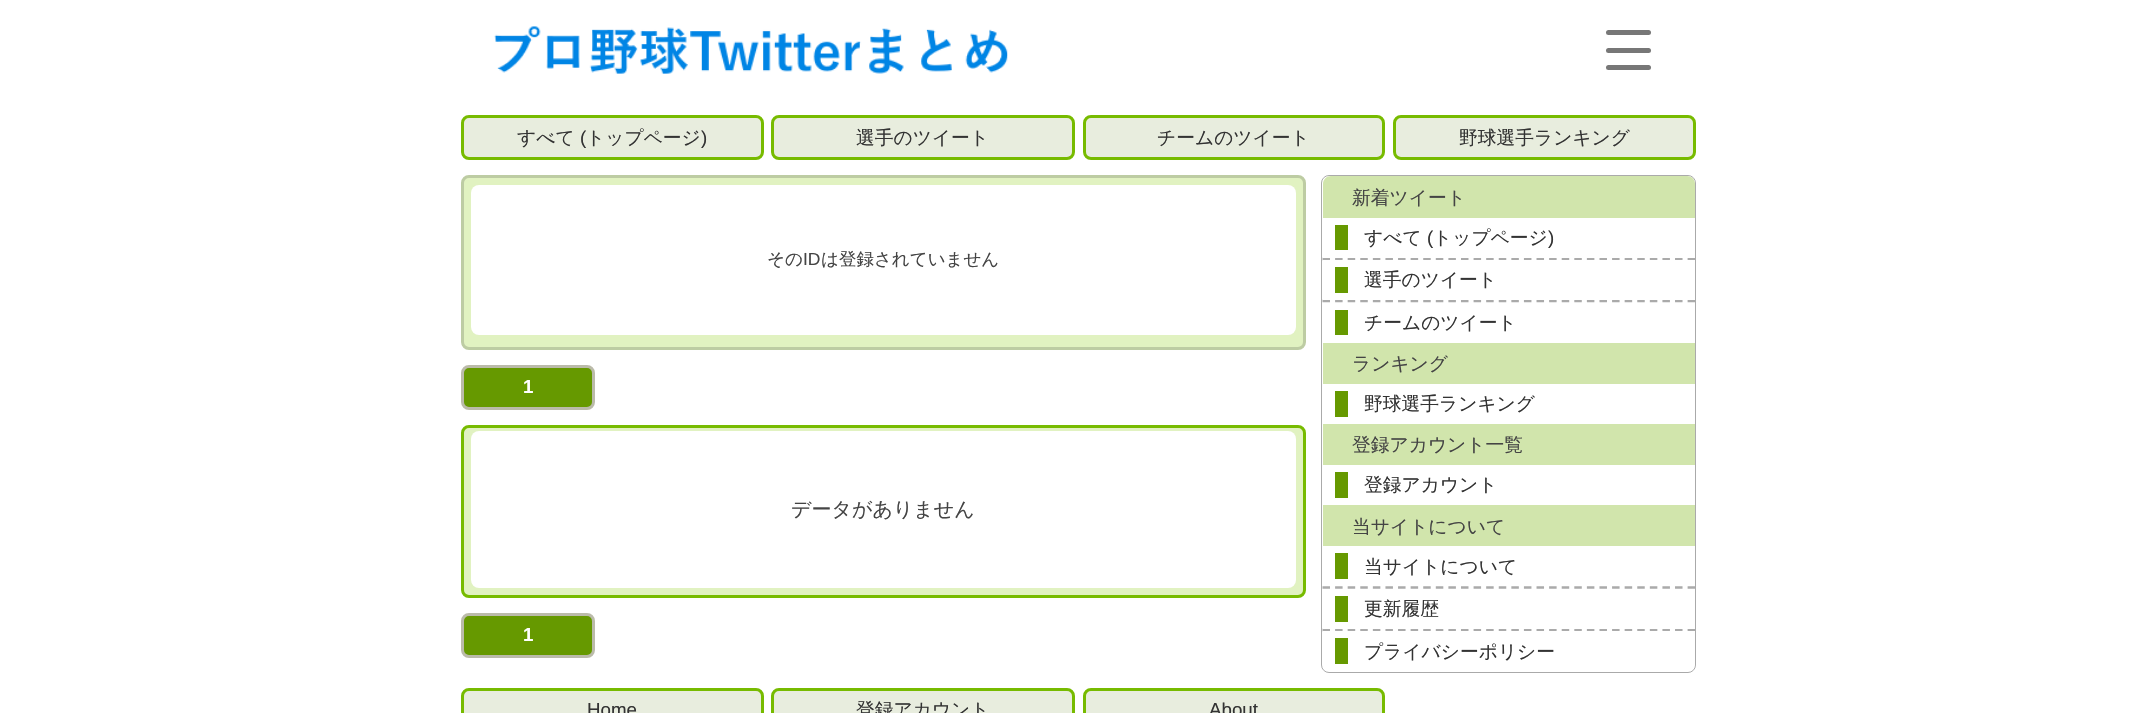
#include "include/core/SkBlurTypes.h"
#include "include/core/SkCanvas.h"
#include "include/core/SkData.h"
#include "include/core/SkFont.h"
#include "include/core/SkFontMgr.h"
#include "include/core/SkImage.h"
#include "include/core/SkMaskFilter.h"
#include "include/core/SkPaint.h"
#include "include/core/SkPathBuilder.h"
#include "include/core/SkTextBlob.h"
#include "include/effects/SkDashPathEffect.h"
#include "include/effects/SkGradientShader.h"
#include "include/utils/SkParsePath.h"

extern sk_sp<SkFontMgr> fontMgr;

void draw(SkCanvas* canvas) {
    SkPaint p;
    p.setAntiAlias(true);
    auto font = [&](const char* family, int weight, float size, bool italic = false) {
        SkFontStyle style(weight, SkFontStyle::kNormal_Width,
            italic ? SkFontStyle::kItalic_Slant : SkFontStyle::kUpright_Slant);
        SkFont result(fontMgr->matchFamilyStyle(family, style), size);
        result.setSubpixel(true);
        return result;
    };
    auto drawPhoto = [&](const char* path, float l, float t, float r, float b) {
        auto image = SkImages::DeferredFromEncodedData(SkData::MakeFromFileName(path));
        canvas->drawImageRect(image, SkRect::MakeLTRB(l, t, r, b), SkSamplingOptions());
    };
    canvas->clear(0xFFFFFFFF);
    drawPhoto("media/1.png", 494, 26, 1008, 74);
    p.setColor(0xFF777777);
    canvas->drawRoundRect(SkRect::MakeLTRB(1606, 30, 1651, 35), 2.5f, 2.5f, p);
    canvas->drawRoundRect(SkRect::MakeLTRB(1606, 48, 1651, 53), 2.5f, 2.5f, p);
    canvas->drawRoundRect(SkRect::MakeLTRB(1606, 65, 1651, 70), 2.5f, 2.5f, p);
    p.setColor(0xFFE8EDDE);
    canvas->drawRoundRect(SkRect::MakeLTRB(462.5f, 116.5f, 762.5f, 158.5f), 6.5f, 6.5f, p);
    p.setStyle(SkPaint::kStroke_Style);
    p.setStrokeWidth(3);
    p.setColor(0xFF77BB00);
    canvas->drawRoundRect(SkRect::MakeLTRB(462.5f, 116.5f, 762.5f, 158.5f), 6.5f, 6.5f, p);
    auto font1 = font("WenQuanYi Zen Hei", 500, 18.75f);
    p.setStyle(SkPaint::kFill_Style);
    p.setColor(0xFF333333);
    canvas->drawString("すべて", 517, 144, font1, p);
    auto font2 = font("Liberation Sans", 400, 18.75f);
    canvas->drawString("(", 580, 144, font2, p);
    canvas->drawString("トップページ", 586, 144, font1, p);
    canvas->drawString(")", 701, 144, font2, p);
    p.setColor(0xFFE8EDDE);
    canvas->drawRoundRect(SkRect::MakeLTRB(772.5f, 116.5f, 1073.5f, 158.5f), 6.5f, 6.5f, p);
    p.setStyle(SkPaint::kStroke_Style);
    p.setColor(0xFF77BB00);
    canvas->drawRoundRect(SkRect::MakeLTRB(772.5f, 116.5f, 1073.5f, 158.5f), 6.5f, 6.5f, p);
    p.setStyle(SkPaint::kFill_Style);
    p.setColor(0xFF333333);
    canvas->drawString("選手のツイート", 856, 144, font1, p);
    p.setColor(0xFFE8EDDE);
    canvas->drawRoundRect(SkRect::MakeLTRB(1084.5f, 116.5f, 1383.5f, 158.5f), 6.5f, 6.5f, p);
    p.setStyle(SkPaint::kStroke_Style);
    p.setColor(0xFF77BB00);
    canvas->drawRoundRect(SkRect::MakeLTRB(1084.5f, 116.5f, 1383.5f, 158.5f), 6.5f, 6.5f, p);
    p.setStyle(SkPaint::kFill_Style);
    p.setColor(0xFF333333);
    canvas->drawString("チームのツイート", 1157, 144, font1, p);
    p.setColor(0xFFE8EDDE);
    canvas->drawRoundRect(SkRect::MakeLTRB(1394.5f, 116.5f, 1694.5f, 158.5f), 6.5f, 6.5f, p);
    p.setStyle(SkPaint::kStroke_Style);
    p.setColor(0xFF77BB00);
    canvas->drawRoundRect(SkRect::MakeLTRB(1394.5f, 116.5f, 1694.5f, 158.5f), 6.5f, 6.5f, p);
    p.setStyle(SkPaint::kFill_Style);
    p.setColor(0xFF333333);
    canvas->drawString("野球選手ランキング", 1459, 144, font1, p);
    p.setColor(0xFFE1F2C1);
    canvas->drawRoundRect(SkRect::MakeLTRB(462.5f, 176.5f, 1304.5f, 348.5f), 6.5f, 6.5f, p);
    p.setStyle(SkPaint::kStroke_Style);
    p.setColor(0xFFBDCCA3);
    canvas->drawRoundRect(SkRect::MakeLTRB(462.5f, 176.5f, 1304.5f, 348.5f), 6.5f, 6.5f, p);
    p.setStyle(SkPaint::kFill_Style);
    p.setColor(0xFFFFFFFF);
    canvas->drawRoundRect(SkRect::MakeLTRB(471, 185, 1296, 335), 8, 8, p);
    auto font3 = font("WenQuanYi Zen Hei", 500, 17.5f);
    p.setColor(0xFF444444);
    canvas->drawString("その", 767, 265, font3, p);
    auto font4 = font("Liberation Sans", 400, 17.5f);
    canvas->drawString("ID", 803, 265, font4, p);
    canvas->drawString("は登録されていません", 821, 265, font3, p);
    p.setColor(0xFF669900);
    canvas->drawRoundRect(SkRect::MakeLTRB(462.5f, 366.5f, 593.5f, 408.5f), 6.5f, 6.5f, p);
    p.setStyle(SkPaint::kStroke_Style);
    p.setColor(0xFFBBBBAA);
    canvas->drawRoundRect(SkRect::MakeLTRB(462.5f, 366.5f, 593.5f, 408.5f), 6.5f, 6.5f, p);
    auto font5 = font("Liberation Sans", 700, 18.75f);
    p.setStyle(SkPaint::kFill_Style);
    p.setColor(0xFFFFFFFF);
    canvas->drawString("1", 523, 393, font5, p);
    p.setColor(0xFFE1F2C1);
    canvas->drawRoundRect(SkRect::MakeLTRB(462.5f, 426.5f, 1304.5f, 596.5f), 6.5f, 6.5f, p);
    p.setStyle(SkPaint::kStroke_Style);
    p.setColor(0xFF77BB00);
    canvas->drawRoundRect(SkRect::MakeLTRB(462.5f, 426.5f, 1304.5f, 596.5f), 6.5f, 6.5f, p);
    p.setStyle(SkPaint::kFill_Style);
    p.setColor(0xFFFFFFFF);
    canvas->drawRoundRect(SkRect::MakeLTRB(471, 431, 1296, 588), 8, 8, p);
    auto font6 = font("WenQuanYi Zen Hei", 500, 20);
    p.setColor(0xFF444444);
    canvas->drawString("データがありません", 791, 516, font6, p);
    p.setColor(0xFF669900);
    canvas->drawRoundRect(SkRect::MakeLTRB(462.5f, 614.5f, 593.5f, 656.5f), 6.5f, 6.5f, p);
    p.setStyle(SkPaint::kStroke_Style);
    p.setColor(0xFFBBBBAA);
    canvas->drawRoundRect(SkRect::MakeLTRB(462.5f, 614.5f, 593.5f, 656.5f), 6.5f, 6.5f, p);
    p.setStyle(SkPaint::kFill_Style);
    p.setColor(0xFFFFFFFF);
    canvas->drawString("1", 523, 641, font5, p);
    p.setStyle(SkPaint::kStroke_Style);
    p.setStrokeWidth(1);
    p.setColor(0xFFAAAAAA);
    canvas->drawRoundRect(SkRect::MakeLTRB(1321.5f, 175.5f, 1695.5f, 672.5f), 7.5f, 7.5f, p);
    p.setStyle(SkPaint::kFill_Style);
    p.setColor(0xFFD1E5AC);
    canvas->drawPath(SkPathBuilder().moveTo(1331, 176).lineTo(1687, 176).cubicTo(1691.5f, 176, 1695, 179.5f, 1695, 184).lineTo(1695, 218).lineTo(1323, 218).lineTo(1323, 184).cubicTo(1323, 179.5f, 1326.5f, 176, 1331, 176).close().detach(), p);
    p.setColor(0xFF444444);
    canvas->drawString("新着ツイート", 1352, 204, font1, p);
    p.setStyle(SkPaint::kStroke_Style);
    p.setStrokeWidth(2.5f);
    p.setColor(0xFFAAAAAA);
    p.setPathEffect(SkDashPathEffect::Make({{7.5f, 5.09f}}, 0));
    canvas->drawPath(SkPathBuilder().moveTo(1322.5f, 259).lineTo(1695, 259).detach(), p);
    p.setPathEffect(nullptr);
    p.setStyle(SkPaint::kFill_Style);
    p.setColor(0xFFFFFFFF);
    canvas->drawRect(SkRect::MakeLTRB(1323, 257, 1695, 258), p);
    p.setColor(0xFF669900);
    canvas->drawRect(SkRect::MakeLTRB(1335, 225, 1348, 250), p);
    p.setColor(0xFF333333);
    canvas->drawString("すべて", 1364, 244, font1, p);
    canvas->drawString("(", 1427, 244, font2, p);
    canvas->drawString("トップページ", 1433, 244, font1, p);
    canvas->drawString(")", 1548, 244, font2, p);
    p.setStyle(SkPaint::kStroke_Style);
    p.setColor(0xFFAAAAAA);
    p.setPathEffect(SkDashPathEffect::Make({{7.5f, 5.09f}}, 0));
    canvas->drawPath(SkPathBuilder().moveTo(1322.5f, 301).lineTo(1695, 301).detach(), p);
    p.setPathEffect(nullptr);
    p.setStyle(SkPaint::kFill_Style);
    p.setColor(0xFFFFFFFF);
    canvas->drawRect(SkRect::MakeLTRB(1323, 260, 1695, 300), p);
    p.setColor(0xFF669900);
    canvas->drawRect(SkRect::MakeLTRB(1335, 267, 1348, 293), p);
    p.setColor(0xFF333333);
    canvas->drawString("選手のツイート", 1364, 286, font1, p);
    p.setColor(0xFF669900);
    canvas->drawRect(SkRect::MakeLTRB(1335, 310, 1348, 335), p);
    p.setColor(0xFF333333);
    canvas->drawString("チームのツイート", 1364, 329, font1, p);
    p.setColor(0xFFD1E5AC);
    canvas->drawRect(SkRect::MakeLTRB(1323, 343, 1695, 384), p);
    p.setColor(0xFF444444);
    canvas->drawString("ランキング", 1352, 370, font1, p);
    p.setColor(0xFF669900);
    canvas->drawRect(SkRect::MakeLTRB(1335, 391, 1348, 417), p);
    p.setColor(0xFF333333);
    canvas->drawString("野球選手ランキング", 1364, 410, font1, p);
    p.setColor(0xFFD1E5AC);
    canvas->drawRect(SkRect::MakeLTRB(1323, 424, 1695, 465), p);
    p.setColor(0xFF444444);
    canvas->drawString("登録アカウント一覧", 1352, 451, font1, p);
    p.setColor(0xFF669900);
    canvas->drawRect(SkRect::MakeLTRB(1335, 472, 1348, 498), p);
    p.setColor(0xFF333333);
    canvas->drawString("登録アカウント", 1364, 491, font1, p);
    p.setColor(0xFFD1E5AC);
    canvas->drawRect(SkRect::MakeLTRB(1323, 505, 1695, 546), p);
    p.setColor(0xFF444444);
    canvas->drawString("当サイトについて", 1352, 533, font1, p);
    p.setStyle(SkPaint::kStroke_Style);
    p.setColor(0xFFAAAAAA);
    p.setPathEffect(SkDashPathEffect::Make({{7.5f, 5.09f}}, 0));
    canvas->drawPath(SkPathBuilder().moveTo(1322.5f, 587.5f).lineTo(1695, 587.5f).detach(), p);
    p.setPathEffect(nullptr);
    p.setStyle(SkPaint::kFill_Style);
    p.setColor(0xFF669900);
    canvas->drawRect(SkRect::MakeLTRB(1335, 553, 1348, 579), p);
    p.setColor(0xFF333333);
    canvas->drawString("当サイトについて", 1364, 573, font1, p);
    p.setStyle(SkPaint::kStroke_Style);
    p.setColor(0xFFAAAAAA);
    p.setPathEffect(SkDashPathEffect::Make({{7.5f, 5.09f}}, 0));
    canvas->drawPath(SkPathBuilder().moveTo(1322.5f, 630).lineTo(1695, 630).detach(), p);
    p.setPathEffect(nullptr);
    p.setStyle(SkPaint::kFill_Style);
    p.setColor(0xFFFFFFFF);
    canvas->drawRect(SkRect::MakeLTRB(1323, 628, 1695, 629), p);
    p.setColor(0xFF669900);
    canvas->drawRect(SkRect::MakeLTRB(1335, 596, 1348, 622), p);
    p.setColor(0xFF333333);
    canvas->drawString("更新履歴", 1364, 615, font1, p);
    p.setColor(0xFFFFFFFF);
    canvas->drawPath(SkPathBuilder().moveTo(1323, 631).lineTo(1695, 631).lineTo(1695, 663).cubicTo(1695, 667.5f, 1691.5f, 671, 1687, 671).lineTo(1331, 671).cubicTo(1326.5f, 671, 1323, 667.5f, 1323, 663).close().detach(), p);
    p.setColor(0xFF669900);
    canvas->drawRect(SkRect::MakeLTRB(1335, 638, 1348, 664), p);
    p.setColor(0xFF333333);
    canvas->drawString("プライバシーポリシー", 1364, 658, font1, p);
    p.setColor(0xFFE8EDDE);
    canvas->drawRoundRect(SkRect::MakeLTRB(462.5f, 689.5f, 762.5f, 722.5f), 6.5f, 6.5f, p);
    p.setStyle(SkPaint::kStroke_Style);
    p.setStrokeWidth(3);
    p.setColor(0xFF77BB00);
    canvas->drawRoundRect(SkRect::MakeLTRB(462.5f, 689.5f, 762.5f, 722.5f), 6.5f, 6.5f, p);
    p.setStyle(SkPaint::kFill_Style);
    p.setColor(0xFF333333);
    canvas->drawString("Home", 587, 716, font2, p);
    p.setColor(0xFFE8EDDE);
    canvas->drawRoundRect(SkRect::MakeLTRB(772.5f, 689.5f, 1073.5f, 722.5f), 6.5f, 6.5f, p);
    p.setStyle(SkPaint::kStroke_Style);
    p.setColor(0xFF77BB00);
    canvas->drawRoundRect(SkRect::MakeLTRB(772.5f, 689.5f, 1073.5f, 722.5f), 6.5f, 6.5f, p);
    p.setStyle(SkPaint::kFill_Style);
    p.setColor(0xFF333333);
    canvas->drawString("登録アカウント", 856, 716, font1, p);
    p.setColor(0xFFE8EDDE);
    canvas->drawRoundRect(SkRect::MakeLTRB(1084.5f, 689.5f, 1383.5f, 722.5f), 6.5f, 6.5f, p);
    p.setStyle(SkPaint::kStroke_Style);
    p.setColor(0xFF77BB00);
    canvas->drawRoundRect(SkRect::MakeLTRB(1084.5f, 689.5f, 1383.5f, 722.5f), 6.5f, 6.5f, p);
    p.setStyle(SkPaint::kFill_Style);
    p.setColor(0xFF333333);
    canvas->drawString("About", 1209, 716, font2, p);
}
